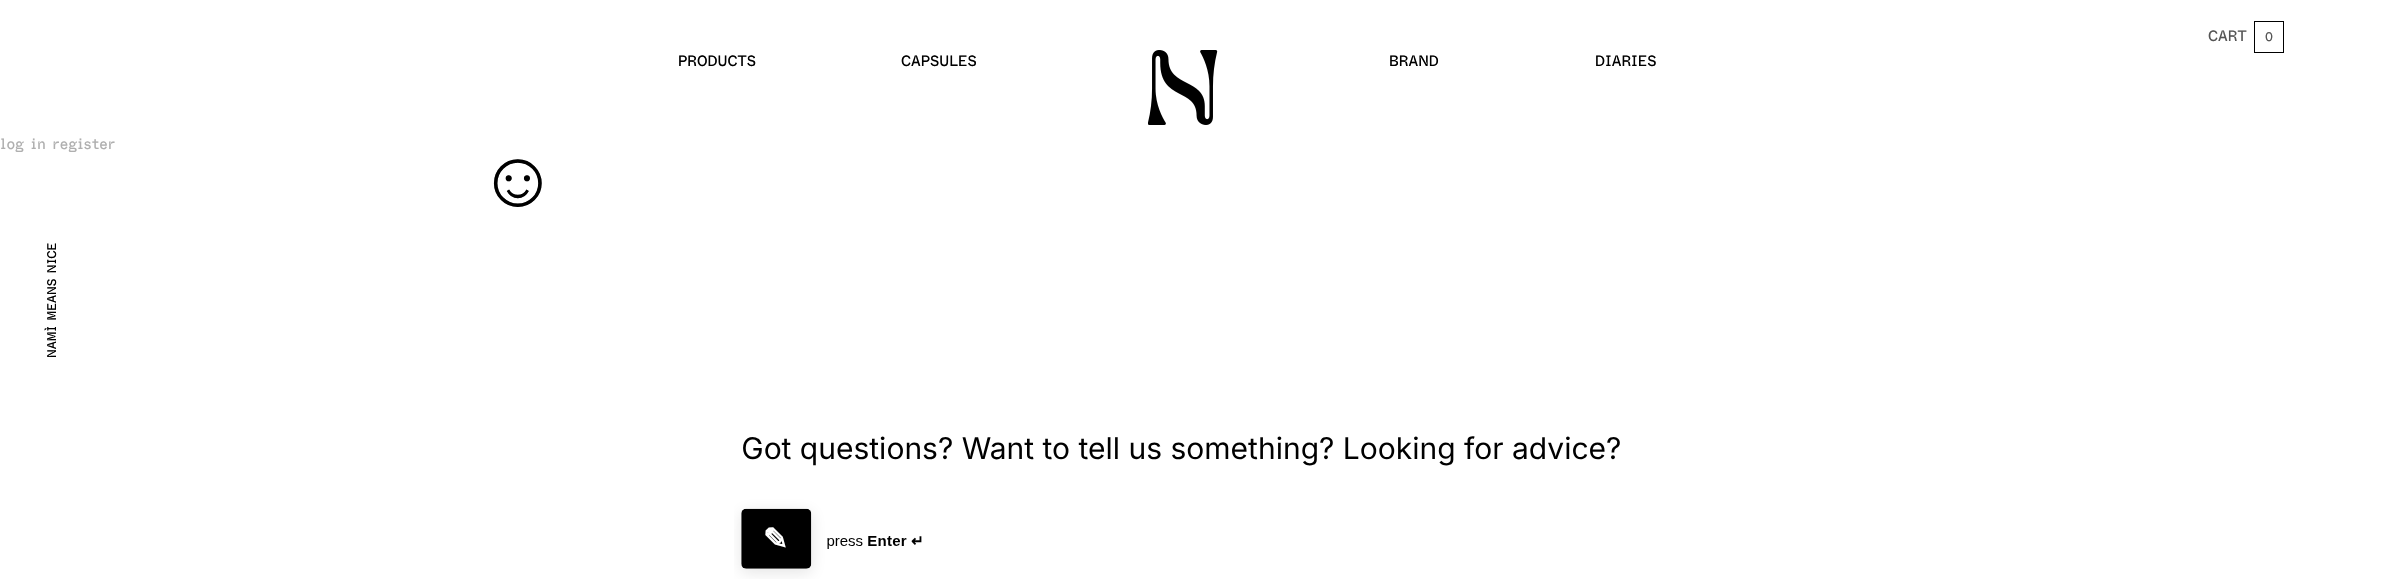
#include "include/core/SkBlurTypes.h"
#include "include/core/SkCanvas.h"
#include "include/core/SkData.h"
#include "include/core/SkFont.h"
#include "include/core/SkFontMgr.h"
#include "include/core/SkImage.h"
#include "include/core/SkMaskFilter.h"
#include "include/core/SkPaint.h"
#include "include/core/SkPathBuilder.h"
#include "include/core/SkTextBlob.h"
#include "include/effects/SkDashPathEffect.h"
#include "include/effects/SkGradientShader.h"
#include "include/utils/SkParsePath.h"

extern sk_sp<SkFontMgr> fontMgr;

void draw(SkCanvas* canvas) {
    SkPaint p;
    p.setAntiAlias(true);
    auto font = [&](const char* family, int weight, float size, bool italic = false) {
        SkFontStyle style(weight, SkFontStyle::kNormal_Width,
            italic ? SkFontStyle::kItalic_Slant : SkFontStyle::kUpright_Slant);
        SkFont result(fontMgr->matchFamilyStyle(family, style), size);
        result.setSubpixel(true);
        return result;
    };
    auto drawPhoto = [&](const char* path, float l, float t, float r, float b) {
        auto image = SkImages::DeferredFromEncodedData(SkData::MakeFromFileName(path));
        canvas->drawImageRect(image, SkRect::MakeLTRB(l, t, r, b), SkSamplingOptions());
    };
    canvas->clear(0xFFFFFFFF);
    auto font1 = font("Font", 400, 15);
    p.setColor(0xFF555555);
    canvas->drawString("CART", 2208, 41, font1, p);
    p.setStyle(SkPaint::kStroke_Style);
    p.setStrokeWidth(1);
    p.setColor(0xFF000000);
    canvas->drawRect(SkRect::MakeLTRB(2254.5f, 21.5f, 2283.5f, 52.5f), p);
    auto font2 = font("Font", 400, 12.5f);
    p.setStyle(SkPaint::kFill_Style);
    p.setColor(0xFF555555);
    canvas->drawString("0", 2265, 41, font2, p);
    p.setColor(0xFF000000);
    canvas->drawString("PRODUCTS", 678, 66, font1, p);
    canvas->drawString("CAPSULES", 901, 66, font1, p);
    drawPhoto("media/1.png", 1148, 50, 1218, 125);
    canvas->drawString("BRAND", 1389, 66, font1, p);
    canvas->drawString("DIARIES", 1595, 66, font1, p);
    p.setColor(0xFFAFAFAF);
    canvas->drawString("log in register", 0, 149, font1, p);
    auto font3 = font("Liberation Serif", 400, 80);
    p.setColor(0xFF000000);
    canvas->drawString("☺", 477, 206, font3, p);
    drawPhoto("media/2.png", 734, 436, 1620, 579);
    canvas->save();
    canvas->rotate(-90, 56, 358);
    canvas->drawString("NAMÌ MEANS NICE", 56, 358, font2, p);
    canvas->restore();
}
